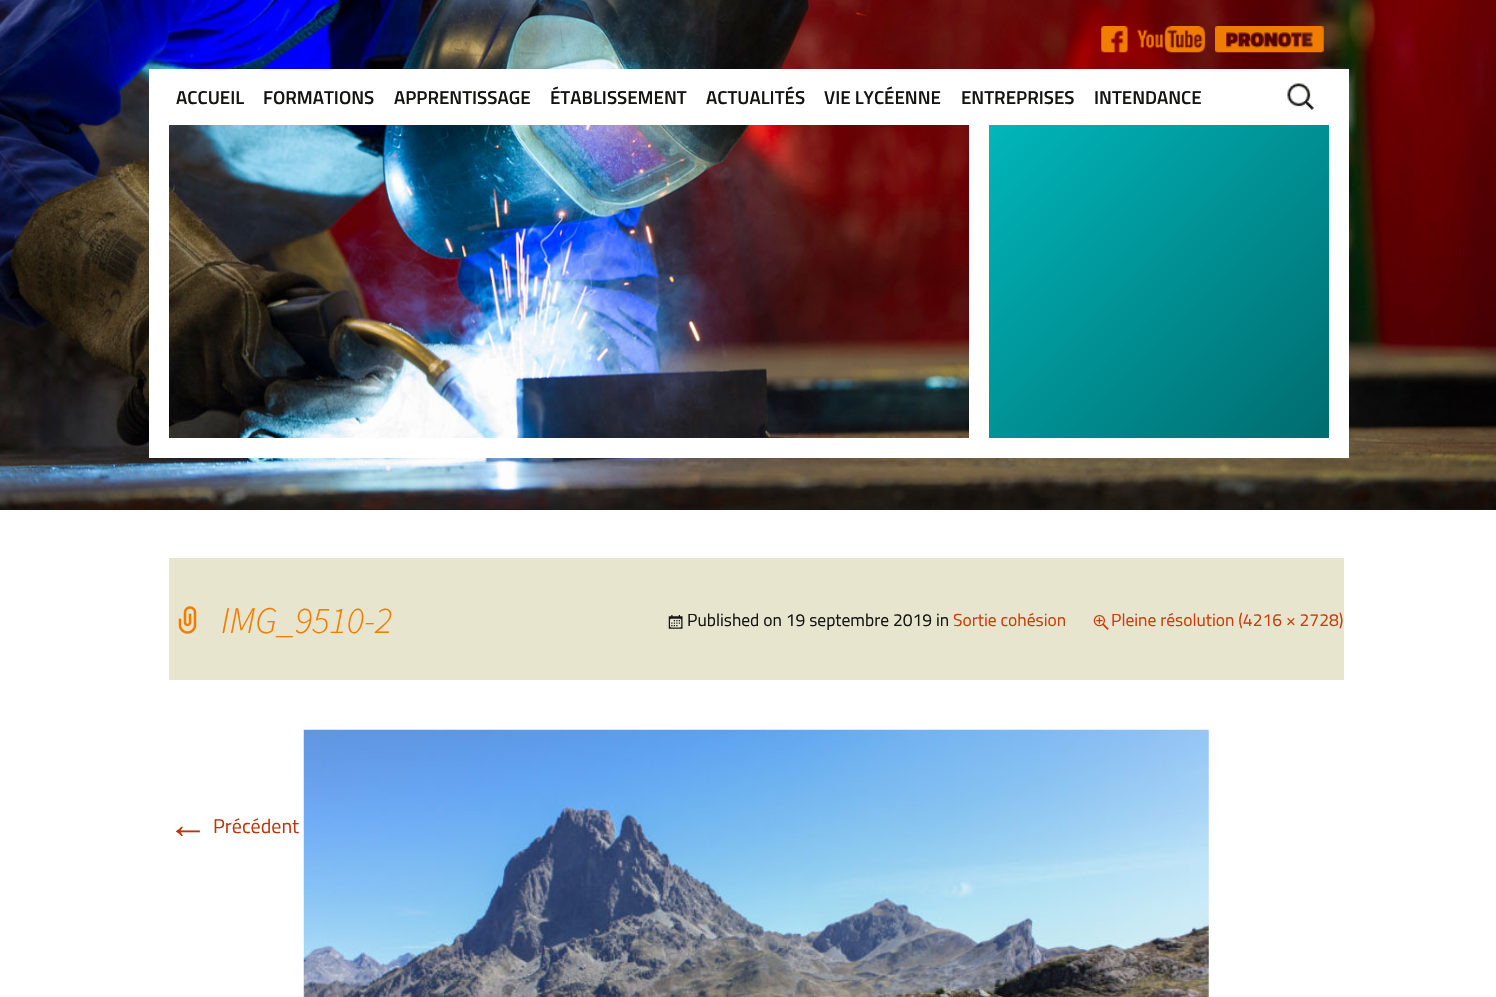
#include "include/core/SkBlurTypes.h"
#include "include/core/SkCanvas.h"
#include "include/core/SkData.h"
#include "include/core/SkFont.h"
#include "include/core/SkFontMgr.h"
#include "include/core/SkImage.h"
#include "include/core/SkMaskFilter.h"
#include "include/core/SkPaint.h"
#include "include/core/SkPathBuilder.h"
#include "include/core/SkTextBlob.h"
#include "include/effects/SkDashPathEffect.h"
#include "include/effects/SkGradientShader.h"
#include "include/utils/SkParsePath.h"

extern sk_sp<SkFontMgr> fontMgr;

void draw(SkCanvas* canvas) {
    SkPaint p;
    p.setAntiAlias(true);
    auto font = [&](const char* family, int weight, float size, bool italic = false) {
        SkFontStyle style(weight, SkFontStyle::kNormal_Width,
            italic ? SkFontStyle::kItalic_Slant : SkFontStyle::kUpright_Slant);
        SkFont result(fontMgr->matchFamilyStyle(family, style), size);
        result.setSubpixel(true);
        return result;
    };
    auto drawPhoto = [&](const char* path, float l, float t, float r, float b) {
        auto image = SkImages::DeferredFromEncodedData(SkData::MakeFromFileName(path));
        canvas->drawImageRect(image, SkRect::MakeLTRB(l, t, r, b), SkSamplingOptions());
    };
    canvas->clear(0xFFFFFFFF);
    p.setColor(0xFF181818);
    canvas->drawRect(SkRect::MakeLTRB(0, 509, 1496, 510), p);
    drawPhoto("media/1.png", 0, 0, 1496, 510);
    drawPhoto("media/2.png", 1101, 26, 1128, 53);
    drawPhoto("media/3.png", 1137, 26, 1205, 53);
    drawPhoto("media/4.png", 1215, 26, 1324, 53);
    p.setColor(0xFFFFFFFF);
    canvas->drawRect(SkRect::MakeLTRB(149, 69, 1349, 125), p);
    auto font1 = font("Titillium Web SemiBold", 600, 18.75f);
    p.setColor(0xFF141412);
    {
        const struct { const char* s; float x, y; } items[] = {
            {"ACCUEIL", 176, 104},
            {"FORMATIONS", 263, 104},
            {"APPRENTISSAGE", 394, 104},
            {"ÉTABLISSEMENT", 550, 104},
            {"ACTUALITÉS", 706, 104},
            {"VIE LYCÉENNE", 824, 104},
            {"ENTREPRISES", 961, 104},
            {"INTENDANCE", 1094, 104},
        };
        for (auto [s, x, y] : items) {
            canvas->drawString(s, x, y, font1, p);
        }
    }
    drawPhoto("media/5.png", 1287, 83, 1314, 110);
    {
        const struct { float l, t, r, b; SkColor color; } items[] = {
            {1329, 125, 1349, 438, 0xFFFFFFFF},
            {169, 438, 1349, 458, 0xFFFFFFFF},
            {149, 125, 169, 458, 0xFFFFFFFF},
        };
        for (auto [l, t, r, b, color] : items) {
            p.setColor(color);
            canvas->drawRect(SkRect::MakeLTRB(l, t, r, b), p);
        }
    }
    {
        const SkColor colors[] = {0xFF00B6BA, 0xFF006C6F};
        const float stops[] = {0, 1};
        const SkPoint ends[] = {{996, 118}, {1322, 444}};
        p.setShader(SkGradientShader::MakeLinear(ends, colors, stops, 2, SkTileMode::kClamp));
        p.setAlpha(255);
    }
    canvas->drawRect(SkRect::MakeLTRB(989, 125, 1329, 438), p);
    p.setShader(nullptr);
    p.setColor(0xFFFFFFFF);
    canvas->drawRect(SkRect::MakeLTRB(969, 125, 989, 438), p);
    p.setColor(0xFFE8E5CE);
    canvas->drawRect(SkRect::MakeLTRB(169, 558, 1344, 680), p);
    drawPhoto("media/6.png", 178, 606, 197, 634);
    auto font2 = font("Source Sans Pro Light", 300, 37.5f, true);
    p.setColor(0xFFF07D00);
    canvas->drawString("IMG_9510-2", 221, 633, font2, p);
    drawPhoto("media/7.png", 668, 615, 683, 629);
    auto font3 = font("Titillium Web", 400, 17.5f);
    p.setColor(0xFF141412);
    canvas->drawString("Published on 19 septembre 2019 in", 687, 626, font3, p);
    p.setColor(0xFFCA3C08);
    canvas->drawString("Sortie cohésion", 953, 626, font3, p);
    drawPhoto("media/8.png", 1093, 615, 1109, 630);
    canvas->drawString("Pleine résolution (4216 × 2728)", 1111, 626, font3, p);
    auto font4 = font("Liberation Sans", 400, 40);
    p.setColor(0xFFBC360A);
    canvas->drawString("←", 168, 838, font4, p);
    auto font5 = font("Titillium Web", 400, 20);
    canvas->drawString("Précédent", 213, 833, font5, p);
    drawPhoto("media/9.png", 303, 729, 1209, 997);
}
